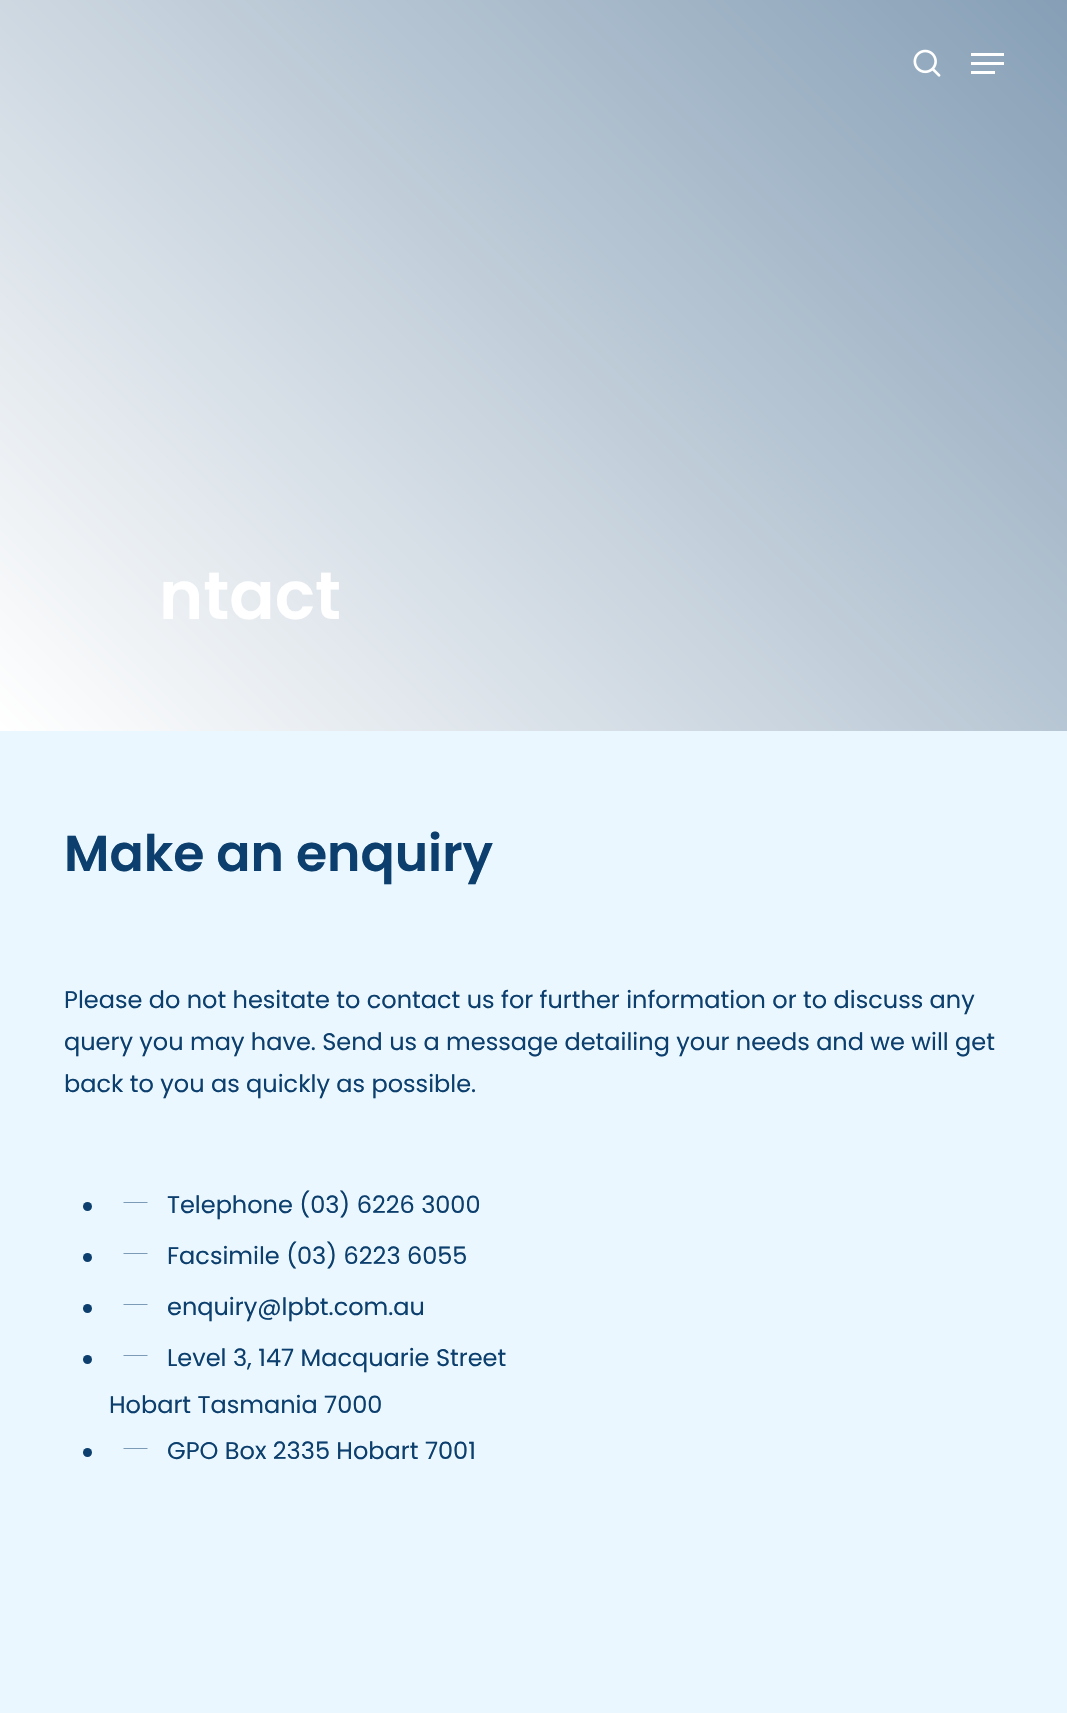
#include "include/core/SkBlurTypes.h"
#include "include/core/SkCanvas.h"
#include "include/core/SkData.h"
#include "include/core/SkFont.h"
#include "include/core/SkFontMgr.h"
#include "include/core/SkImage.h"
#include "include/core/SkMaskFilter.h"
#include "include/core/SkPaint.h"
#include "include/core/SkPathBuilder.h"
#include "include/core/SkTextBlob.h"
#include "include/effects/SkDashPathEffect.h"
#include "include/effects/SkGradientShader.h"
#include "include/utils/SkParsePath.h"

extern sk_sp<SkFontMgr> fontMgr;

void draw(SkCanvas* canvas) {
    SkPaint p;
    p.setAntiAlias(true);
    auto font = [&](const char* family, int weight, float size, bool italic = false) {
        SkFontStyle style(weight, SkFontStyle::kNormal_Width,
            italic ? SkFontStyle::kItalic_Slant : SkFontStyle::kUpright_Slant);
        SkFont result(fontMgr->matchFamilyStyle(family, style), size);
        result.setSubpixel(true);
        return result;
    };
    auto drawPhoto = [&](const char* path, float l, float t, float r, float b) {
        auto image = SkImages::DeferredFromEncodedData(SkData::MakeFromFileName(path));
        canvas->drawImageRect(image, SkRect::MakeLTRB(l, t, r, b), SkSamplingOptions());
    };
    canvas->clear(0xFFEAF7FF);
    {
        const SkColor colors[] = {0xFFFFFFFF, 0xFF869FB6};
        const float stops[] = {0, 1};
        const SkPoint ends[] = {{84, 814}, {984, -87}};
        p.setShader(SkGradientShader::MakeLinear(ends, colors, stops, 2, SkTileMode::kClamp));
        p.setAlpha(255);
    }
    canvas->drawRect(SkRect::MakeLTRB(0, 0, 1067, 731), p);
    drawPhoto("media/1.png", 913, 49, 941, 77);
    p.setShader(nullptr);
    {
        const struct { float l, t, r, b; SkColor color; } items[] = {
            {971, 53, 1004, 56, 0xFFFFFFFF},
            {971, 71, 995, 74, 0xFFFFFFFF},
            {971, 62, 1004, 65, 0xFFFFFFFF},
        };
        for (auto [l, t, r, b, color] : items) {
            p.setColor(color);
            canvas->drawRect(SkRect::MakeLTRB(l, t, r, b), p);
        }
    }
    auto font1 = font("Poppins", 600, 67);
    canvas->drawString("ntact", 159, 619, font1, p);
    auto font2 = font("Poppins", 600, 50.5f);
    p.setColor(0xFF0C3F6D);
    canvas->drawString("Make an enquiry", 64, 871, font2, p);
    auto font3 = font("Poppins", 400, 24);
    {
        const struct { const char* s; float x, y; } items[] = {
            {"Please do not hesitate to contact us for further information or to discuss any", 64, 1008},
            {"query you may have. Send us a message detailing your needs and we will get", 64, 1050},
            {"back to you as quickly as possible.", 64, 1092},
        };
        for (auto [s, x, y] : items) {
            canvas->drawString(s, x, y, font3, p);
        }
    }
    canvas->drawCircle(87.5f, 1206.5f, 4.5f, p);
    canvas->drawPath(SkPathBuilder().moveTo(123.5f, 1202).lineTo(147.5f, 1202).lineTo(147.5f, 1202.5f).lineTo(123.5f, 1202.5f).close().detach(), p);
    canvas->drawString("Telephone (03) 6226 3000", 167, 1213, font3, p);
    canvas->drawCircle(87.5f, 1257.5f, 4.5f, p);
    canvas->drawPath(SkPathBuilder().moveTo(123.5f, 1253).lineTo(147.5f, 1253).lineTo(147.5f, 1253.5f).lineTo(123.5f, 1253.5f).close().detach(), p);
    canvas->drawString("Facsimile (03) 6223 6055", 167, 1264, font3, p);
    canvas->drawCircle(87.5f, 1308.5f, 4.5f, p);
    canvas->drawPath(SkPathBuilder().moveTo(123.5f, 1304).lineTo(147.5f, 1304).lineTo(147.5f, 1304.5f).lineTo(123.5f, 1304.5f).close().detach(), p);
    canvas->drawString("enquiry@lpbt.com.au", 167, 1315, font3, p);
    canvas->drawCircle(87.5f, 1359.5f, 4.5f, p);
    canvas->drawPath(SkPathBuilder().moveTo(123.5f, 1355).lineTo(147.5f, 1355).lineTo(147.5f, 1355.5f).lineTo(123.5f, 1355.5f).close().detach(), p);
    canvas->drawString("Level 3, 147 Macquarie Street", 167, 1366, font3, p);
    canvas->drawString("Hobart Tasmania 7000", 109, 1413, font3, p);
    canvas->drawCircle(87.5f, 1452.5f, 4.5f, p);
    canvas->drawPath(SkPathBuilder().moveTo(123.5f, 1448).lineTo(147.5f, 1448).lineTo(147.5f, 1448.5f).lineTo(123.5f, 1448.5f).close().detach(), p);
    canvas->drawString("GPO Box 2335 Hobart 7001", 167, 1459, font3, p);
}
